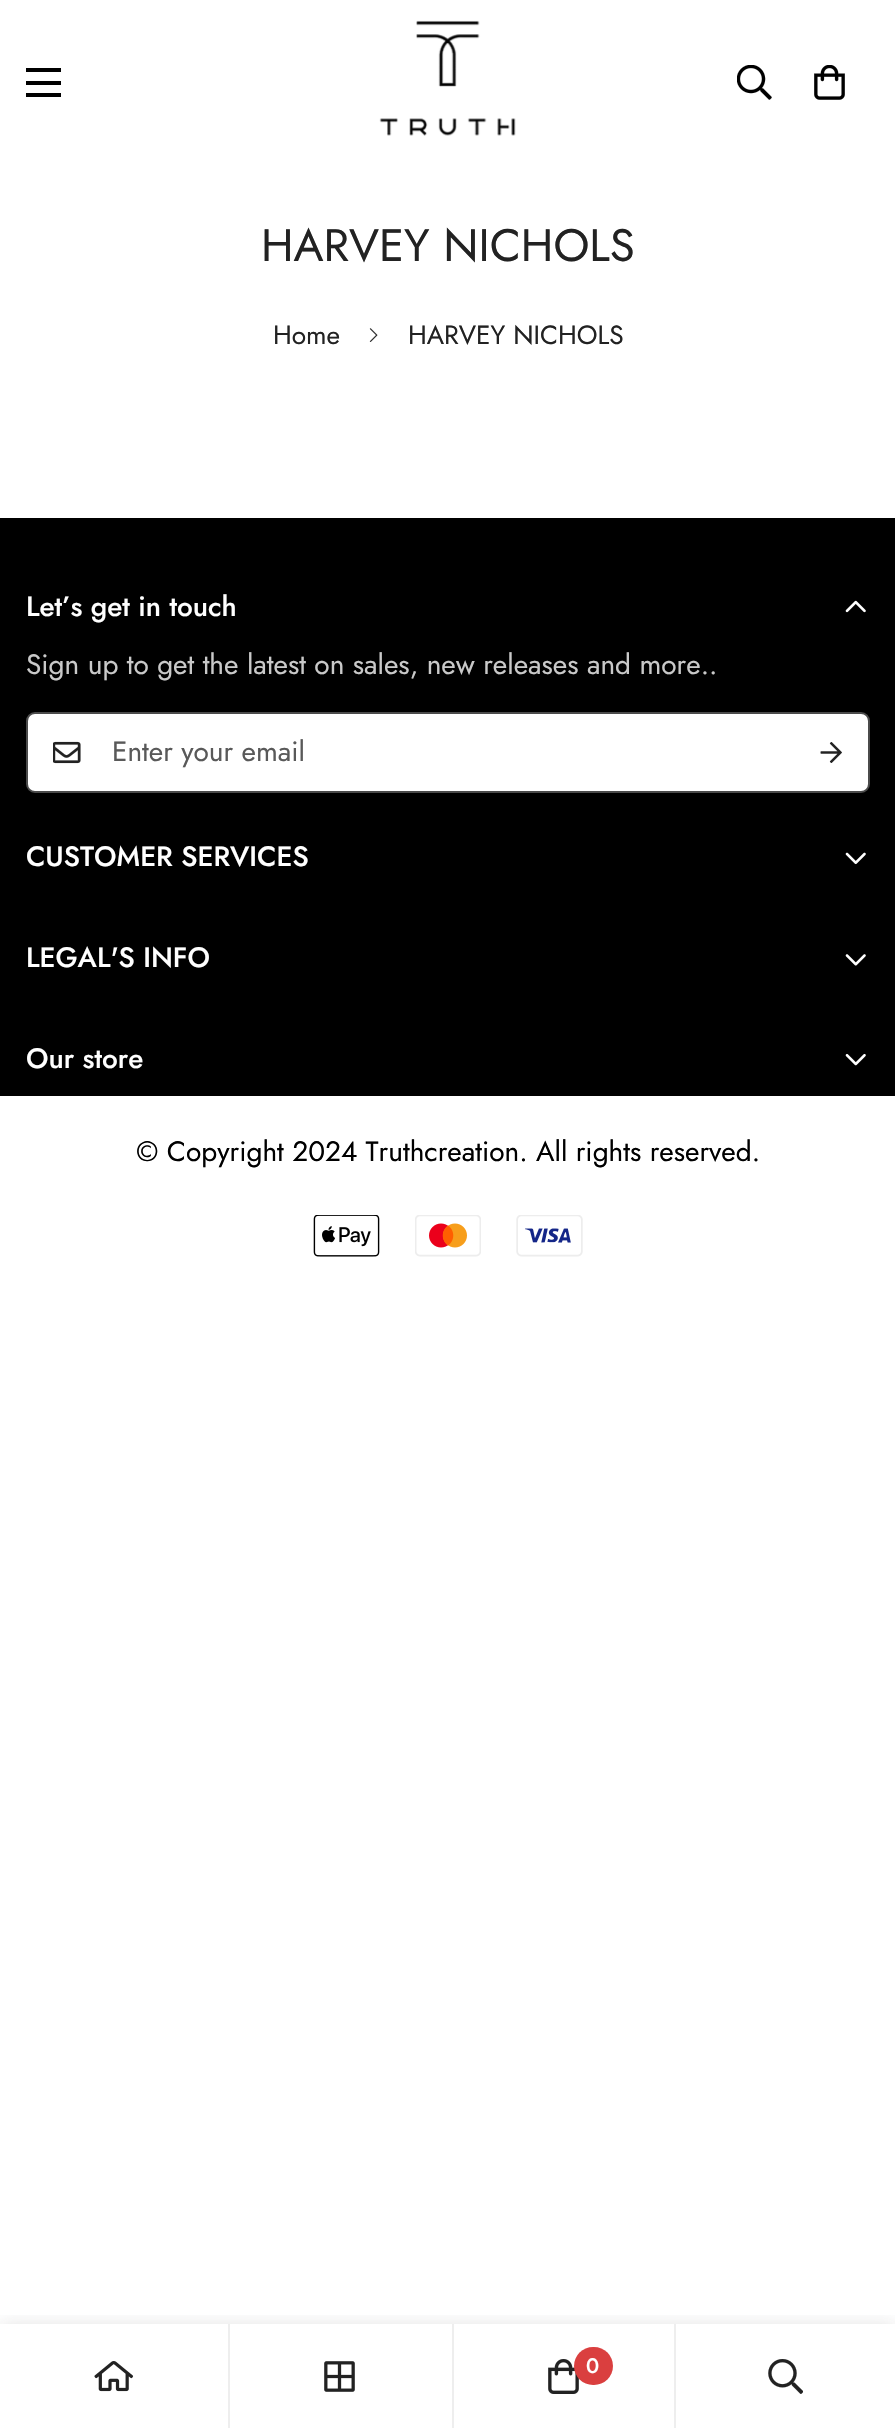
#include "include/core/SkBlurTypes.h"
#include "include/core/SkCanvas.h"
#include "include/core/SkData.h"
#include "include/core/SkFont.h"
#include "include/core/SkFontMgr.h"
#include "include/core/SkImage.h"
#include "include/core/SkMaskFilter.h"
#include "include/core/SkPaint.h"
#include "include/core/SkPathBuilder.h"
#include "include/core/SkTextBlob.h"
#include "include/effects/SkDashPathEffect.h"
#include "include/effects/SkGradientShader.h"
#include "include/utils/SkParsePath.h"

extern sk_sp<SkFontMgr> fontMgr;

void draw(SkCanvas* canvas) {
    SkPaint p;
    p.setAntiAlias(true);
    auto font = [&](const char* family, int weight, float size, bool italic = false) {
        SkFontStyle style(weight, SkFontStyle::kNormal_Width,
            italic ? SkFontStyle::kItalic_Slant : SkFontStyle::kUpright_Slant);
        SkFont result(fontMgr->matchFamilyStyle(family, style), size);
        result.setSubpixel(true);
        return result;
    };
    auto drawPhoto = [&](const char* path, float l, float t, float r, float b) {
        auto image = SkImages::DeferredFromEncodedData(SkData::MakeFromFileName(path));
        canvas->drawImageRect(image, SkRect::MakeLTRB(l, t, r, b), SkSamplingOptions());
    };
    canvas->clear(0xFFFFFFFF);
    {
        const struct { float l, t, r, b; SkColor color; } items[] = {
            {26, 81, 61, 85, 0xFF000000},
            {26, 68, 61, 72, 0xFF000000},
            {26, 93, 61, 97, 0xFF000000},
        };
        for (auto [l, t, r, b, color] : items) {
            p.setColor(color);
            canvas->drawRect(SkRect::MakeLTRB(l, t, r, b), p);
        }
    }
    drawPhoto("media/1.png", 379, 20, 516, 136);
    drawPhoto("media/2.png", 737, 65, 772, 100);
    drawPhoto("media/3.png", 814, 65, 845, 100);
    auto font1 = font("Jost", 400, 45.5f);
    p.setColor(0xFF222222);
    canvas->drawString("HARVEY NICHOLS", 261, 261, font1, p);
    auto font2 = font("Jost", 400, 26.25f);
    canvas->drawString("Home", 273, 344, font2, p);
    drawPhoto("media/4.png", 369, 328, 378, 342);
    canvas->drawString("HARVEY NICHOLS", 408, 344, font2, p);
    p.setColor(0xFF000000);
    canvas->drawRect(SkRect::MakeLTRB(0, 518, 895, 1096), p);
    auto font3 = font("Jost", 500, 28);
    p.setColor(0xFFFFFFFF);
    canvas->drawString("Let’s get in touch", 26, 616, font3, p);
    drawPhoto("media/5.png", 845, 600, 866, 613);
    auto font4 = font("Jost", 400, 28);
    p.setColor(0xFFC9C9C9);
    canvas->drawString("Sign up to get the latest on sales, new releases and more..", 26, 674, font4, p);
    p.setColor(0xFFFFFFFF);
    canvas->drawRoundRect(SkRect::MakeLTRB(27, 713, 869, 792), 8, 8, p);
    p.setStyle(SkPaint::kStroke_Style);
    p.setStrokeWidth(2);
    p.setColor(0xFF4B4B4B);
    canvas->drawRoundRect(SkRect::MakeLTRB(27, 713, 869, 792), 8, 8, p);
    drawPhoto("media/6.png", 53, 741, 81, 764);
    p.setStyle(SkPaint::kFill_Style);
    p.setColor(0xFF595959);
    canvas->drawString("Enter your email", 112, 761, font4, p);
    drawPhoto("media/7.png", 820, 742, 842, 763);
    p.setColor(0xFFFFFFFF);
    canvas->drawString("CUSTOMER SERVICES", 26, 866, font3, p);
    drawPhoto("media/8.png", 845, 852, 866, 865);
    canvas->drawString("LEGAL'S INFO", 26, 967, font3, p);
    drawPhoto("media/9.png", 845, 954, 866, 966);
    canvas->drawString("Our store", 26, 1068, font3, p);
    drawPhoto("media/10.png", 845, 1053, 866, 1066);
    p.setColor(0xFF000000);
    canvas->drawString("© Copyright 2024 Truthcreation. All rights reserved.", 136, 1161, font4, p);
    drawPhoto("media/11.png", 313, 1215, 380, 1257);
    drawPhoto("media/12.png", 415, 1215, 481, 1257);
    drawPhoto("media/13.png", 516, 1215, 583, 1257);
    canvas->save();
    canvas->clipRect(SkRect::MakeLTRB(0, 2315, 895, 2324));
    p.setColor(0x1F222222);
    p.setMaskFilter(SkMaskFilter::MakeBlur(kNormal_SkBlurStyle, 9));
    canvas->drawRect(SkRect::MakeLTRB(0, 2324, 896, 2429), p);
    p.setMaskFilter(nullptr);
    canvas->restore();
    p.setColor(0xFFEEEEEE);
    canvas->drawRect(SkRect::MakeLTRB(228, 2324, 230, 2428), p);
    drawPhoto("media/14.png", 94, 2361, 134, 2392);
    canvas->drawRect(SkRect::MakeLTRB(452, 2324, 454, 2428), p);
    drawPhoto("media/15.png", 324, 2361, 355, 2392);
    canvas->drawRect(SkRect::MakeLTRB(674, 2324, 676, 2428), p);
    drawPhoto("media/16.png", 548, 2359, 579, 2394);
    p.setColor(0xFFDA3F3F);
    canvas->drawRoundRect(SkRect::MakeLTRB(574, 2347, 613, 2385), 19, 19, p);
    auto font5 = font("Jost", 500, 21);
    p.setColor(0xFFFFFFFF);
    canvas->drawString("0", 586, 2373, font5, p);
    drawPhoto("media/17.png", 768, 2359, 803, 2394);
}
